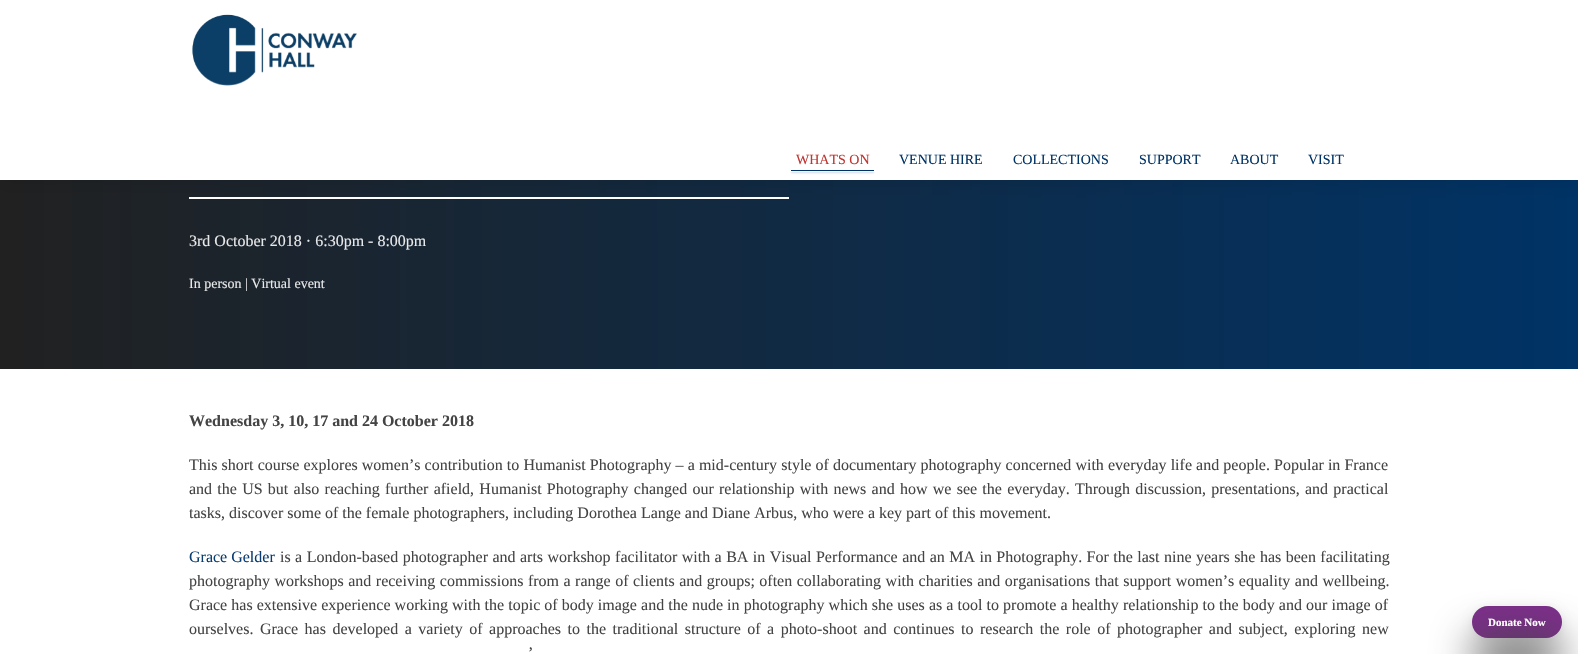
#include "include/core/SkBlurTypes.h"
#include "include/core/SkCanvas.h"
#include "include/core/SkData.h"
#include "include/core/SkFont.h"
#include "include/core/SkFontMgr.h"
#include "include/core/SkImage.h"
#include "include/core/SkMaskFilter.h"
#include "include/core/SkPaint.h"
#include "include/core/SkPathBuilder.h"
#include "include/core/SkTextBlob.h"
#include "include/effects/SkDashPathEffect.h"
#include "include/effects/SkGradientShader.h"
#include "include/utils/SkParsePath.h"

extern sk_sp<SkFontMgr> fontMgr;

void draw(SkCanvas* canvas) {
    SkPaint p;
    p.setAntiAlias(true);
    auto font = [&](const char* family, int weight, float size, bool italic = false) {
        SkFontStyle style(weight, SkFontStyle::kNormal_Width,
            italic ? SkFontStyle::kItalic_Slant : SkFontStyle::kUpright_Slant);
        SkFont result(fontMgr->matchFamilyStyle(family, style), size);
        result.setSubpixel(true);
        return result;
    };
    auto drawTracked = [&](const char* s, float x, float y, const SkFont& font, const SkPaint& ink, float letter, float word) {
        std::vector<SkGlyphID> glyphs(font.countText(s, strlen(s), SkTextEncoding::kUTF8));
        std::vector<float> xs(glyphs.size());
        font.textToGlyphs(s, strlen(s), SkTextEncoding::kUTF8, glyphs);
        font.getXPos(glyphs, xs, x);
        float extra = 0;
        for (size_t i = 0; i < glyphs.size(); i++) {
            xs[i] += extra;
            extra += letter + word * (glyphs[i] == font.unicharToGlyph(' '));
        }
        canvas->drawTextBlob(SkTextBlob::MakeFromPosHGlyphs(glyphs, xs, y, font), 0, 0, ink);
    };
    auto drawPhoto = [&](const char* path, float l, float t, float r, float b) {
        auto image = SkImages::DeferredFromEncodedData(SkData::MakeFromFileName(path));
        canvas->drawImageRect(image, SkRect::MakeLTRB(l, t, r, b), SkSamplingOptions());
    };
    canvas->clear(0xFFFFFFFF);
    {
        const SkColor colors[] = {0xFF212121, 0xFF003366};
        const float stops[] = {0, 1};
        const SkPoint ends[] = {{0, 235}, {1578, 234}};
        p.setShader(SkGradientShader::MakeLinear(ends, colors, stops, 2, SkTileMode::kClamp));
        p.setAlpha(255);
    }
    canvas->drawRect(SkRect::MakeLTRB(0, 180, 1578, 369), p);
    p.setShader(nullptr);
    p.setColor(0xFFFFFFFF);
    canvas->drawRect(SkRect::MakeLTRB(189, 197, 789, 199), p);
    p.setColor(0x14000000);
    p.setMaskFilter(SkMaskFilter::MakeBlur(kNormal_SkBlurStyle, 7.5f));
    canvas->drawRect(SkRect::MakeLTRB(0, 5, 1578, 185), p);
    p.setMaskFilter(nullptr);
    p.setColor(0xFFFFFFFF);
    canvas->drawRect(SkRect::MakeLTRB(0, 0, 1578, 180), p);
    drawPhoto("media/1.png", 192, 14, 357, 86);
    auto font1 = font("Liberation Serif", 400, 14);
    p.setColor(0xFFC03631);
    canvas->drawString("WHATS ON", 796, 164, font1, p);
    p.setColor(0x40003366);
    p.setMaskFilter(SkMaskFilter::MakeBlur(kNormal_SkBlurStyle, 1));
    canvas->drawRect(SkRect::MakeLTRB(791, 172, 874, 173), p);
    p.setMaskFilter(nullptr);
    p.setColor(0xFF003366);
    canvas->drawRect(SkRect::MakeLTRB(791, 170, 874, 171), p);
    {
        const struct { const char* s; float x, y; } items[] = {
            {"VENUE HIRE", 899, 164},
            {"COLLECTIONS", 1013, 164},
            {"SUPPORT", 1139, 164},
            {"ABOUT", 1230, 164},
            {"VISIT", 1308, 164},
        };
        for (auto [s, x, y] : items) {
            canvas->drawString(s, x, y, font1, p);
        }
    }
    auto font2 = font("Liberation Serif", 400, 16);
    p.setColor(0xFFE8E9EA);
    canvas->drawString("3rd October 2018 · 6:30pm - 8:00pm", 189, 246, font2, p);
    canvas->drawString("In person | Virtual event", 189, 288, font1, p);
    auto font3 = font("Liberation Serif", 700, 16);
    p.setColor(0xFF444444);
    canvas->drawString("Wednesday 3, 10, 17 and 24 October 2018", 189, 426, font3, p);
    drawTracked("This short course explores women’s contribution to Humanist Photography – a mid-century style of documentary photography concerned with everyday life and people. Popular in France", 189, 470, font2, p, 0, 0.1f);
    drawTracked("and the US but also reaching further afield, Humanist Photography changed our relationship with news and how we see the everyday. Through discussion, presentations, and practical", 189, 494, font2, p, 0, 1.25f);
    canvas->drawString("tasks, discover some of the female photographers, including Dorothea Lange and Diane Arbus, who were a key part of this movement.", 189, 518, font2, p);
    p.setColor(0xFF093C71);
    canvas->drawString("Grace Gelder", 189, 562, font2, p);
    p.setColor(0xFF444444);
    drawTracked("is a London-based photographer and arts workshop facilitator with a BA in Visual Performance and an MA in Photography. For the last nine years she has been facilitating", 280, 562, font2, p, 0, 0.45f);
    drawTracked("photography workshops and receiving commissions from a range of clients and groups; often collaborating with charities and organisations that support women’s equality and wellbeing.", 189, 586, font2, p, 0, 0.5f);
    drawTracked("Grace has extensive experience working with the topic of body image and the nude in photography which she uses as a tool to promote a healthy relationship to the body and our image of", 189, 610, font2, p, 0, 0.1f);
    drawTracked("ourselves. Grace has developed a variety of approaches to the traditional structure of a photo-shoot and continues to research the role of photographer and subject, exploring new", 189, 634, font2, p, 0, 2.5f);
    canvas->drawString("’", 528, 658, font2, p);
    p.setColor(0x14000000);
    p.setMaskFilter(SkMaskFilter::MakeBlur(kNormal_SkBlurStyle, 4));
    canvas->drawRoundRect(SkRect::MakeLTRB(1472, 608, 1562, 640), 16, 16, p);
    p.setMaskFilter(nullptr);
    p.setColor(0xFF7C2E8A);
    canvas->drawRoundRect(SkRect::MakeLTRB(1472, 606, 1562, 638), 16, 16, p);
    p.setColor(0xFF444444);
    p.setMaskFilter(SkMaskFilter::MakeBlur(kNormal_SkBlurStyle, 20));
    canvas->drawRoundRect(SkRect::MakeLTRB(1472, 638, 1562, 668), 15, 15, p);
    p.setMaskFilter(nullptr);
    auto font4 = font("Liberation Serif", 700, 11);
    p.setColor(0xFFFFFFFF);
    canvas->drawString("Donate Now", 1488, 626, font4, p);
}
